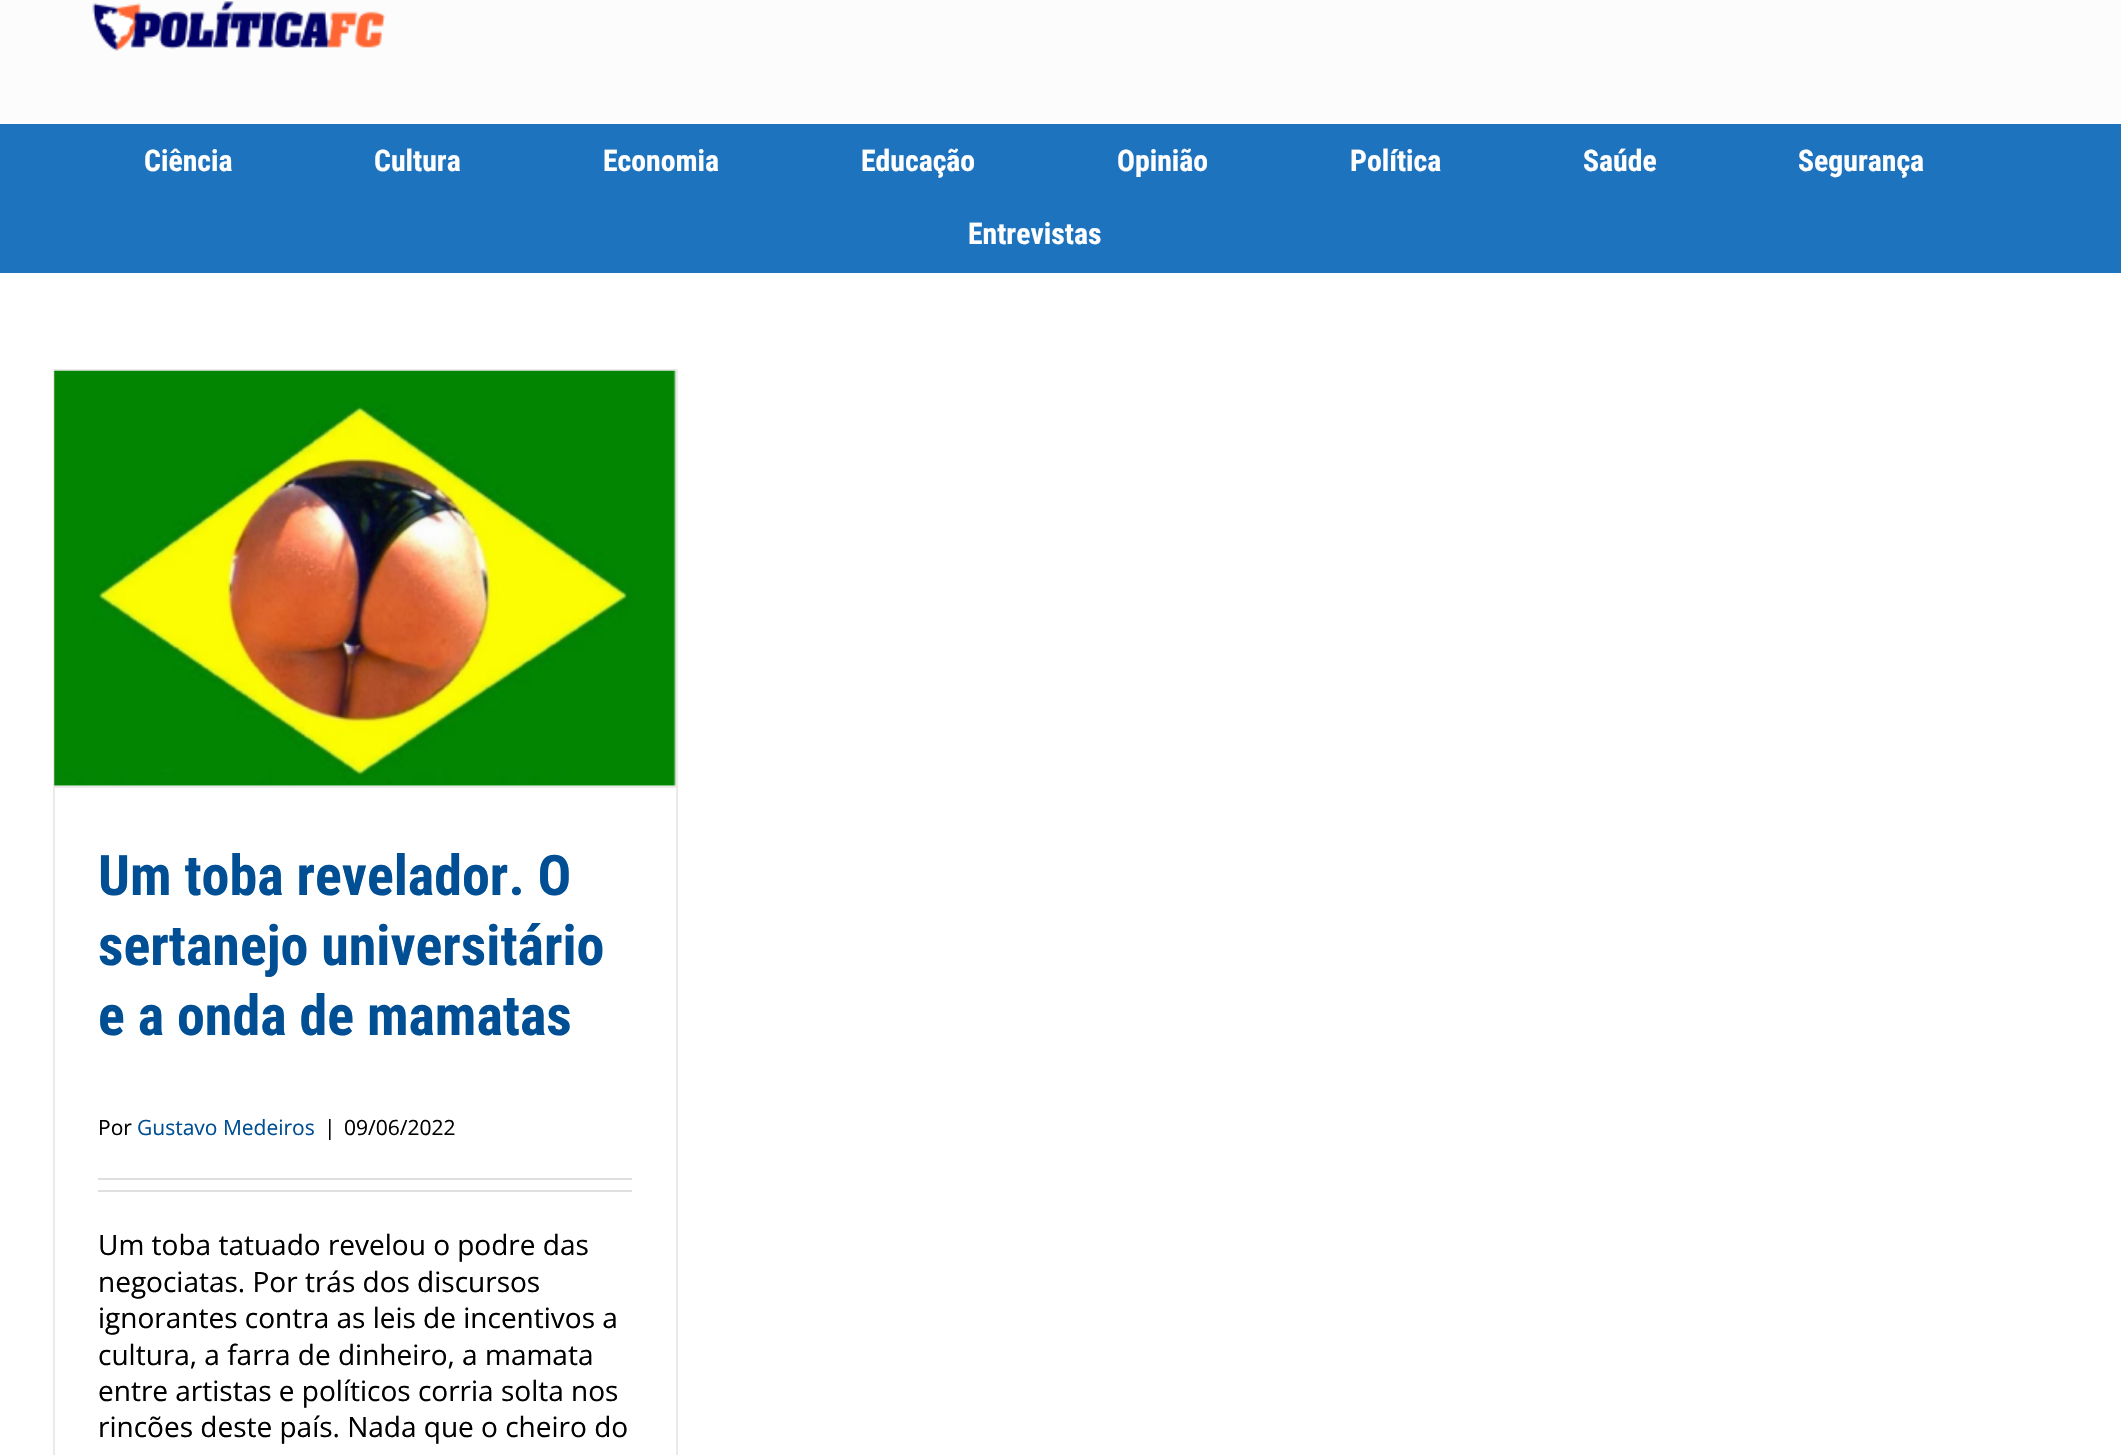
#include "include/core/SkBlurTypes.h"
#include "include/core/SkCanvas.h"
#include "include/core/SkData.h"
#include "include/core/SkFont.h"
#include "include/core/SkFontMgr.h"
#include "include/core/SkImage.h"
#include "include/core/SkMaskFilter.h"
#include "include/core/SkPaint.h"
#include "include/core/SkPathBuilder.h"
#include "include/core/SkTextBlob.h"
#include "include/effects/SkDashPathEffect.h"
#include "include/effects/SkGradientShader.h"
#include "include/utils/SkParsePath.h"

extern sk_sp<SkFontMgr> fontMgr;

void draw(SkCanvas* canvas) {
    SkPaint p;
    p.setAntiAlias(true);
    auto font = [&](const char* family, int weight, float size, bool italic = false) {
        SkFontStyle style(weight, SkFontStyle::kNormal_Width,
            italic ? SkFontStyle::kItalic_Slant : SkFontStyle::kUpright_Slant);
        SkFont result(fontMgr->matchFamilyStyle(family, style), size);
        result.setSubpixel(true);
        return result;
    };
    auto drawPhoto = [&](const char* path, float l, float t, float r, float b) {
        auto image = SkImages::DeferredFromEncodedData(SkData::MakeFromFileName(path));
        canvas->drawImageRect(image, SkRect::MakeLTRB(l, t, r, b), SkSamplingOptions());
    };
    canvas->clear(0xFFFFFFFF);
    p.setColor(0xFFFCFCFC);
    canvas->drawRect(SkRect::MakeLTRB(0, 0, 2121, 124), p);
    drawPhoto("media/1.png", 92, 1, 386, 51);
    p.setColor(0xFF1E73BE);
    canvas->drawRect(SkRect::MakeLTRB(0, 124, 2121, 273), p);
    auto font1 = font("Roboto Condensed", 700, 29.75f);
    p.setColor(0xFFFFFFFF);
    {
        const struct { const char* s; float x, y; } items[] = {
            {"Ciência", 144, 171},
            {"Cultura", 374, 171},
            {"Economia", 603, 171},
            {"Educação", 861, 171},
            {"Opinião", 1117, 171},
            {"Política", 1350, 171},
            {"Saúde", 1583, 171},
            {"Segurança", 1798, 171},
            {"Entrevistas", 968, 244},
        };
        for (auto [s, x, y] : items) {
            canvas->drawString(s, x, y, font1, p);
        }
    }
    {
        const struct { float l, t, r, b; SkColor color; } items[] = {
            {53, 369, 677, 371, 0xFFEBEAEA},
            {676, 369, 678, 1455, 0xFFEBEAEA},
            {53, 369, 55, 1455, 0xFFEBEAEA},
            {54, 786, 676, 788, 0xFFEBEAEA},
        };
        for (auto [l, t, r, b, color] : items) {
            p.setColor(color);
            canvas->drawRect(SkRect::MakeLTRB(l, t, r, b), p);
        }
    }
    drawPhoto("media/2.png", 54, 370, 676, 786);
    auto font2 = font("Roboto Condensed", 700, 56);
    p.setColor(0xFF004E93);
    {
        const struct { const char* s; float x, y; } items[] = {
            {"Um toba revelador. O", 98, 895},
            {"sertanejo universitário", 98, 965},
            {"e a onda de mamatas", 98, 1035},
        };
        for (auto [s, x, y] : items) {
            canvas->drawString(s, x, y, font2, p);
        }
    }
    auto font3 = font("Open Sans", 400, 21);
    p.setColor(0xFF000000);
    canvas->drawString("Por", 98, 1135, font3, p);
    p.setColor(0xFF004E93);
    canvas->drawString("Gustavo Medeiros", 137, 1135, font3, p);
    p.setColor(0xFF000000);
    canvas->drawString("|", 324, 1135, font3, p);
    canvas->drawString("09/06/2022", 344, 1135, font3, p);
    p.setColor(0xFFE0DEDE);
    canvas->drawRect(SkRect::MakeLTRB(98, 1178, 632, 1180), p);
    canvas->drawRect(SkRect::MakeLTRB(98, 1190, 632, 1192), p);
    auto font4 = font("Open Sans", 400, 28);
    p.setColor(0xFF000000);
    {
        const struct { const char* s; float x, y; } items[] = {
            {"Um toba tatuado revelou o podre das", 98, 1255},
            {"negociatas. Por trás dos discursos", 98, 1292},
            {"ignorantes contra as leis de incentivos a", 98, 1328},
            {"cultura, a farra de dinheiro, a mamata", 98, 1365},
            {"entre artistas e políticos corria solta nos", 98, 1401},
            {"rincões deste país. Nada que o cheiro do", 98, 1437},
        };
        for (auto [s, x, y] : items) {
            canvas->drawString(s, x, y, font4, p);
        }
    }
}
